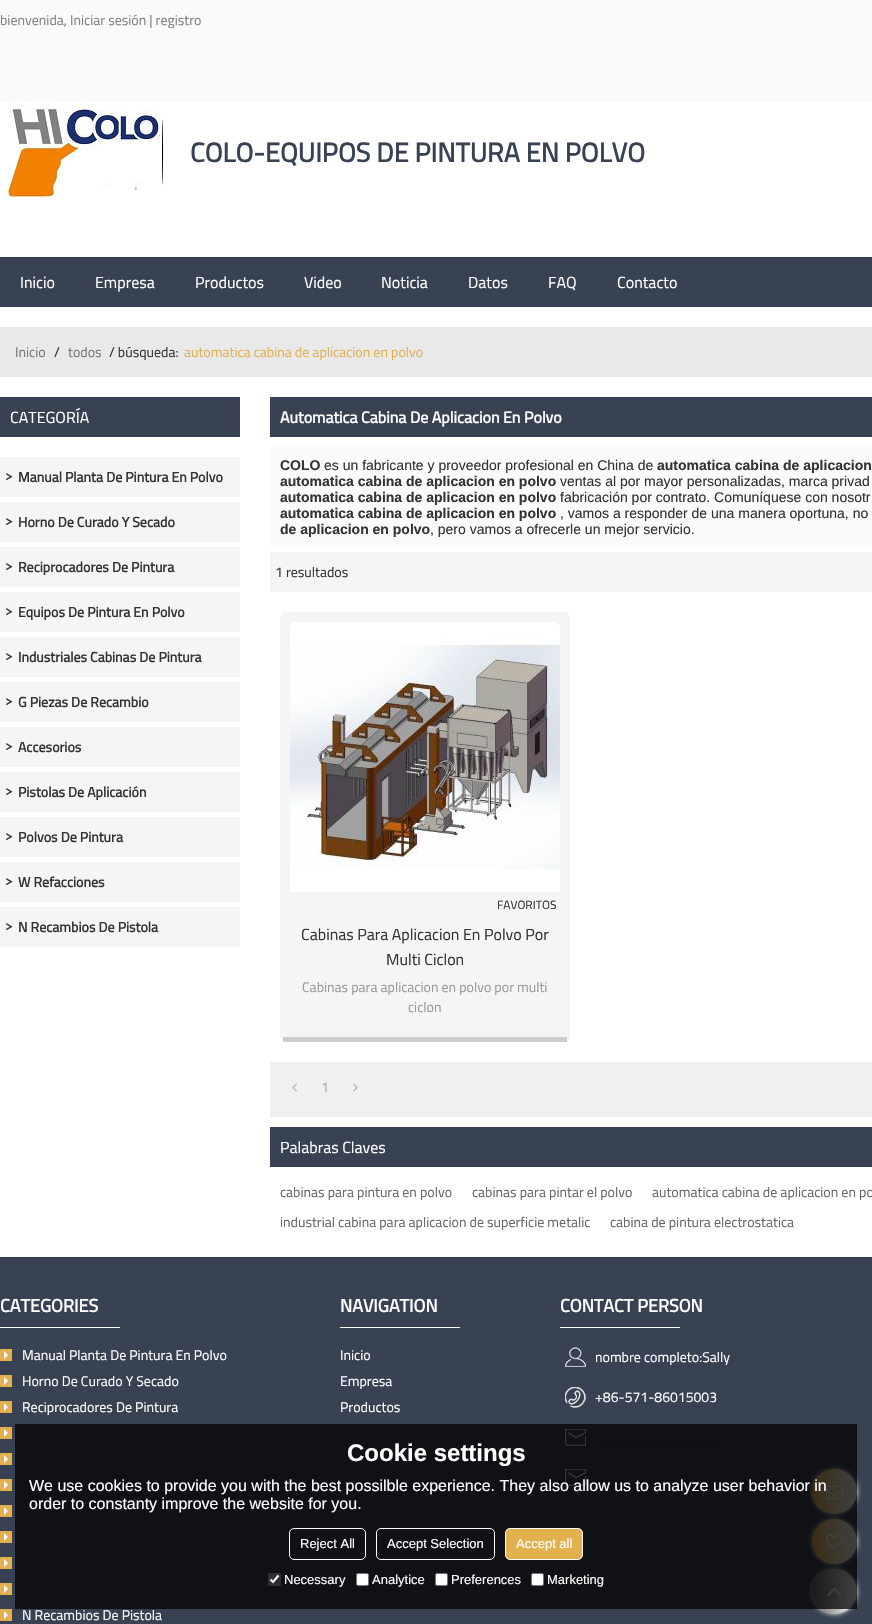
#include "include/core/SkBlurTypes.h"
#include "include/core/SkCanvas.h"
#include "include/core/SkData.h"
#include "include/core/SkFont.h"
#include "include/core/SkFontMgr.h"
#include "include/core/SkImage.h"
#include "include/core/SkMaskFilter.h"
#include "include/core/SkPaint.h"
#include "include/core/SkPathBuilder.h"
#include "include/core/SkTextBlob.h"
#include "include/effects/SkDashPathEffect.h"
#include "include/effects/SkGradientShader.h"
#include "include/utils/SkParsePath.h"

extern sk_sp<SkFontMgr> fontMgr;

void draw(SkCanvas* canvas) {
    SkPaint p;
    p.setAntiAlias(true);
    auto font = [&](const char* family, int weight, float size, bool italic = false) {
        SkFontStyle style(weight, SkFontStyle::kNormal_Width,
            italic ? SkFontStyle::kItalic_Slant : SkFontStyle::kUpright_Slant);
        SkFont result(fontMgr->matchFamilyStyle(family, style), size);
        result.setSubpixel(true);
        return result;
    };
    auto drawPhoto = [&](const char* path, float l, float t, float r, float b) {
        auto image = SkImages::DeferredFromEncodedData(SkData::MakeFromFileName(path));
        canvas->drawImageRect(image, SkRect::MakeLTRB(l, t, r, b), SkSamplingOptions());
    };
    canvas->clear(0xFFFFFFFF);
    p.setColor(0xFFFAFAFA);
    canvas->drawRect(SkRect::MakeLTRB(0, 0, 872, 102), p);
    auto font1 = font("Titillium Web", 400, 14);
    p.setColor(0xFF808080);
    canvas->drawString("bienvenida, Iniciar sesión | registro", 0, 25, font1, p);
    drawPhoto("media/1.png", 5, 102, 160, 198);
    drawPhoto("media/2.png", 162, 119, 163, 185);
    auto font2 = font("Titillium Web", 700, 27);
    p.setColor(0xFF394253);
    canvas->drawString("COLO-EQUIPOS DE PINTURA EN POLVO", 190, 162, font2, p);
    canvas->drawRect(SkRect::MakeLTRB(0, 257, 872, 307), p);
    auto font3 = font("Titillium Web", 400, 16);
    p.setColor(0xFFFFFFFF);
    {
        const struct { const char* s; float x, y; } items[] = {
            {"Inicio", 20, 288},
            {"Empresa", 95, 288},
            {"Productos", 195, 288},
            {"Video", 304, 288},
            {"Noticia", 381, 288},
            {"Datos", 468, 288},
            {"FAQ", 548, 288},
            {"Contacto", 617, 288},
        };
        for (auto [s, x, y] : items) {
            canvas->drawString(s, x, y, font3, p);
        }
    }
    p.setColor(0xFFE9E9E9);
    canvas->drawRect(SkRect::MakeLTRB(0, 327, 872, 377), p);
    p.setColor(0xFF777777);
    canvas->drawString("Inicio", 15, 357, font1, p);
    p.setColor(0xFF333333);
    canvas->drawString("/", 54, 357, font1, p);
    p.setColor(0xFF777777);
    canvas->drawString("todos", 68, 357, font1, p);
    p.setColor(0xFF333333);
    canvas->drawString("/ búsqueda:", 109, 357, font1, p);
    p.setColor(0xFFE3B04E);
    canvas->drawString("automatica cabina de aplicacion en polvo", 184, 357, font1, p);
    p.setColor(0xFF394253);
    canvas->drawRect(SkRect::MakeLTRB(0, 397, 240, 437), p);
    p.setColor(0xFFFFFFFF);
    canvas->drawString("CATEGORÍA", 10, 423, font3, p);
    p.setColor(0xFFF5F5F5);
    canvas->drawRect(SkRect::MakeLTRB(0, 457, 240, 497), p);
    auto font4 = font("Josefin Sans", 400, 14);
    p.setColor(0xFF333333);
    canvas->drawString(">", 5, 480, font4, p);
    auto font5 = font("Titillium Web", 700, 14);
    canvas->drawString("Manual Planta De Pintura En Polvo", 18, 482, font5, p);
    p.setColor(0xFFF5F5F5);
    canvas->drawRect(SkRect::MakeLTRB(0, 502, 240, 542), p);
    p.setColor(0xFF333333);
    canvas->drawString(">", 5, 525, font4, p);
    canvas->drawString("Horno De Curado Y Secado", 18, 527, font5, p);
    p.setColor(0xFFF5F5F5);
    canvas->drawRect(SkRect::MakeLTRB(0, 547, 240, 587), p);
    p.setColor(0xFF333333);
    canvas->drawString(">", 5, 570, font4, p);
    canvas->drawString("Reciprocadores De Pintura", 18, 572, font5, p);
    p.setColor(0xFFF5F5F5);
    canvas->drawRect(SkRect::MakeLTRB(0, 592, 240, 632), p);
    p.setColor(0xFF333333);
    canvas->drawString(">", 5, 615, font4, p);
    canvas->drawString("Equipos De Pintura En Polvo", 18, 617, font5, p);
    p.setColor(0xFFF5F5F5);
    canvas->drawRect(SkRect::MakeLTRB(0, 637, 240, 677), p);
    p.setColor(0xFF333333);
    canvas->drawString(">", 5, 660, font4, p);
    canvas->drawString("Industriales Cabinas De Pintura", 18, 662, font5, p);
    p.setColor(0xFFF5F5F5);
    canvas->drawRect(SkRect::MakeLTRB(0, 682, 240, 722), p);
    p.setColor(0xFF333333);
    canvas->drawString(">", 5, 705, font4, p);
    canvas->drawString("G Piezas De Recambio", 18, 707, font5, p);
    p.setColor(0xFFF5F5F5);
    canvas->drawRect(SkRect::MakeLTRB(0, 727, 240, 767), p);
    p.setColor(0xFF333333);
    canvas->drawString(">", 5, 750, font4, p);
    canvas->drawString("Accesorios", 18, 752, font5, p);
    p.setColor(0xFFF5F5F5);
    canvas->drawRect(SkRect::MakeLTRB(0, 772, 240, 812), p);
    p.setColor(0xFF333333);
    canvas->drawString(">", 5, 795, font4, p);
    canvas->drawString("Pistolas De Aplicación", 18, 797, font5, p);
    p.setColor(0xFFF5F5F5);
    canvas->drawRect(SkRect::MakeLTRB(0, 817, 240, 857), p);
    p.setColor(0xFF333333);
    canvas->drawString(">", 5, 840, font4, p);
    canvas->drawString("Polvos De Pintura", 18, 842, font5, p);
    p.setColor(0xFFF5F5F5);
    canvas->drawRect(SkRect::MakeLTRB(0, 862, 240, 902), p);
    p.setColor(0xFF333333);
    canvas->drawString(">", 5, 885, font4, p);
    canvas->drawString("W Refacciones", 18, 887, font5, p);
    p.setColor(0xFFF5F5F5);
    canvas->drawRect(SkRect::MakeLTRB(0, 907, 240, 947), p);
    p.setColor(0xFF333333);
    canvas->drawString(">", 5, 930, font4, p);
    canvas->drawString("N Recambios De Pistola", 18, 932, font5, p);
    p.setColor(0xFF394253);
    canvas->drawRect(SkRect::MakeLTRB(270, 397, 872, 437), p);
    auto font6 = font("Titillium Web", 700, 16);
    p.setColor(0xFFFFFFFF);
    canvas->drawString("Automatica Cabina De Aplicacion En Polvo", 280, 423, font6, p);
    p.setColor(0xFFFAFAFA);
    canvas->drawRoundRect(SkRect::MakeLTRB(270, 447, 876, 547), 4, 4, p);
    auto font7 = font("Liberation Sans", 700, 14);
    p.setColor(0xFF333333);
    canvas->drawString("COLO", 280, 470, font7, p);
    auto font8 = font("Liberation Sans", 400, 14);
    canvas->drawString("es un fabricante y proveedor profesional en China de", 324, 470, font8, p);
    canvas->drawString("automatica cabina de aplicacion", 657, 470, font7, p);
    canvas->drawString("automatica cabina de aplicacion en polvo", 280, 486, font7, p);
    canvas->drawString("ventas al por mayor personalizadas, marca privad", 560, 486, font8, p);
    canvas->drawString("automatica cabina de aplicacion en polvo", 280, 502, font7, p);
    canvas->drawString("fabricación por contrato. Comuníquese con nosotr", 560, 502, font8, p);
    canvas->drawString("automatica cabina de aplicacion en polvo", 280, 518, font7, p);
    canvas->drawString(", vamos a responder de una manera oportuna, no", 560, 518, font8, p);
    canvas->drawString("de aplicacion en polvo", 280, 534, font7, p);
    canvas->drawString(", pero vamos a ofrecerle un mejor servicio.", 430, 534, font8, p);
    p.setColor(0xFFF5F5F5);
    canvas->drawRect(SkRect::MakeLTRB(270, 552, 872, 592), p);
    p.setColor(0xFF333333);
    canvas->drawString("1 resultados", 275, 577, font1, p);
    p.setColor(0xFFF5F5F5);
    canvas->drawRoundRect(SkRect::MakeLTRB(280, 612, 570, 1042), 6, 6, p);
    p.setColor(0xFFCCCCCC);
    canvas->drawRect(SkRect::MakeLTRB(283, 1037, 567, 1042), p);
    drawPhoto("media/3.png", 290, 622, 560, 892);
    auto font9 = font("Titillium Web", 400, 12);
    p.setColor(0xFF333333);
    canvas->drawString("FAVORITOS", 497, 909, font9, p);
    canvas->drawString("Cabinas Para Aplicacion En Polvo Por", 301, 940, font3, p);
    canvas->drawString("Multi Ciclon", 386, 965, font3, p);
    p.setColor(0xFF999999);
    canvas->drawString("Cabinas para aplicacion en polvo por multi", 302, 992, font1, p);
    canvas->drawString("ciclon", 408, 1012, font1, p);
    p.setColor(0xFFF0F0F0);
    canvas->drawRect(SkRect::MakeLTRB(270, 1062, 872, 1117), p);
    drawPhoto("media/4.png", 292, 1083, 297, 1092);
    p.setColor(0xFFAAAAAA);
    canvas->drawString("1", 321, 1092, font1, p);
    drawPhoto("media/5.png", 353, 1083, 358, 1092);
    p.setColor(0xFF394253);
    canvas->drawRect(SkRect::MakeLTRB(270, 1127, 872, 1167), p);
    p.setColor(0xFFFFFFFF);
    canvas->drawString("Palabras Claves", 280, 1153, font3, p);
    p.setColor(0xFF666666);
    {
        const struct { const char* s; float x, y; } items[] = {
            {"cabinas para pintura en polvo", 280, 1197},
            {"cabinas para pintar el polvo", 472, 1197},
            {"automatica cabina de aplicacion en po", 652, 1197},
            {"industrial cabina para aplicacion de superficie metalic", 280, 1227},
            {"cabina de pintura electrostatica", 610, 1227},
        };
        for (auto [s, x, y] : items) {
            canvas->drawString(s, x, y, font1, p);
        }
    }
    p.setColor(0xFF394253);
    canvas->drawRect(SkRect::MakeLTRB(0, 1257, 872, 1624), p);
    auto font10 = font("Titillium Web", 700, 18);
    p.setColor(0xFFFFFFFF);
    canvas->drawString("CATEGORIES", 0, 1312, font10, p);
    canvas->drawRect(SkRect::MakeLTRB(0, 1327, 120, 1328), p);
    drawPhoto("media/6.png", 0, 1349, 12, 1361);
    canvas->drawString("Manual Planta De Pintura En Polvo", 22, 1360, font1, p);
    drawPhoto("media/6.png", 0, 1375, 12, 1387);
    canvas->drawString("Horno De Curado Y Secado", 22, 1386, font1, p);
    drawPhoto("media/6.png", 0, 1401, 12, 1413);
    canvas->drawString("Reciprocadores De Pintura", 22, 1412, font1, p);
    drawPhoto("media/6.png", 0, 1427, 12, 1439);
    drawPhoto("media/6.png", 0, 1453, 12, 1465);
    drawPhoto("media/6.png", 0, 1479, 12, 1491);
    drawPhoto("media/6.png", 0, 1505, 12, 1517);
    drawPhoto("media/6.png", 0, 1531, 12, 1543);
    drawPhoto("media/6.png", 0, 1557, 12, 1569);
    drawPhoto("media/6.png", 0, 1583, 12, 1595);
    drawPhoto("media/6.png", 0, 1609, 12, 1621);
    canvas->drawString("N Recambios De Pistola", 22, 1620, font1, p);
    canvas->drawString("NAVIGATION", 340, 1312, font10, p);
    canvas->drawRect(SkRect::MakeLTRB(340, 1327, 460, 1328), p);
    {
        const struct { const char* s; float x, y; } items[] = {
            {"Inicio", 340, 1360},
            {"Empresa", 340, 1386},
            {"Productos", 340, 1412},
        };
        for (auto [s, x, y] : items) {
            canvas->drawString(s, x, y, font1, p);
        }
    }
    canvas->drawString("CONTACT PERSON", 560, 1312, font10, p);
    canvas->drawRect(SkRect::MakeLTRB(560, 1327, 680, 1328), p);
    drawPhoto("media/7.png", 565, 1347, 586, 1367);
    canvas->drawString("nombre completo:Sally", 595, 1362, font1, p);
    drawPhoto("media/8.png", 565, 1387, 586, 1408);
    canvas->drawString("+86-571-86015003", 595, 1402, font1, p);
    drawPhoto("media/9.png", 565, 1429, 586, 1446);
    p.setColor(0xFF3A364F);
    canvas->drawRect(SkRect::MakeLTRB(595, 1443, 726, 1444), p);
    drawPhoto("media/9.png", 565, 1469, 586, 1486);
    p.setColor(0xFFEEEEEE);
    p.setMaskFilter(SkMaskFilter::MakeBlur(kNormal_SkBlurStyle, 2.5f));
    canvas->drawRoundRect(SkRect::MakeLTRB(812, 1469, 857, 1514), 22.5f, 22.5f, p);
    p.setMaskFilter(nullptr);
    {
        const SkColor colors[] = {0xFFE3B04E, 0xFFFFFFFF};
        const float stops[] = {0, 1};
        const SkPoint ends[] = {{812, 1492}, {857, 1492}};
        p.setShader(SkGradientShader::MakeLinear(ends, colors, stops, 2, SkTileMode::kClamp));
        p.setAlpha(255);
    }
    canvas->drawCircle(834.5f, 1491.5f, 22.5f, p);
    drawPhoto("media/10.png", 826, 1485, 843, 1500);
    p.setShader(nullptr);
    p.setColor(0xFFEEEEEE);
    p.setMaskFilter(SkMaskFilter::MakeBlur(kNormal_SkBlurStyle, 2.5f));
    canvas->drawRoundRect(SkRect::MakeLTRB(812, 1519, 857, 1564), 22.5f, 22.5f, p);
    p.setMaskFilter(nullptr);
    {
        const SkColor colors[] = {0xFFE3B04E, 0xFFFFFFFF};
        const float stops[] = {0, 1};
        const SkPoint ends[] = {{812, 1542}, {857, 1542}};
        p.setShader(SkGradientShader::MakeLinear(ends, colors, stops, 2, SkTileMode::kClamp));
        p.setAlpha(255);
    }
    canvas->drawCircle(834.5f, 1541.5f, 22.5f, p);
    drawPhoto("media/11.png", 826, 1534, 843, 1550);
    p.setShader(nullptr);
    p.setColor(0xFFEEEEEE);
    p.setMaskFilter(SkMaskFilter::MakeBlur(kNormal_SkBlurStyle, 2.5f));
    canvas->drawRoundRect(SkRect::MakeLTRB(812, 1569, 857, 1614), 22.5f, 22.5f, p);
    p.setMaskFilter(nullptr);
    {
        const SkColor colors[] = {0xFF666666, 0xFFFFFFFF};
        const float stops[] = {0, 1};
        const SkPoint ends[] = {{812, 1592}, {857, 1592}};
        p.setShader(SkGradientShader::MakeLinear(ends, colors, stops, 2, SkTileMode::kClamp));
        p.setAlpha(255);
    }
    canvas->drawCircle(834.5f, 1591.5f, 22.5f, p);
    drawPhoto("media/12.png", 827, 1587, 842, 1596);
    p.setShader(nullptr);
    p.setColor(0xBF000000);
    canvas->drawRect(SkRect::MakeLTRB(15, 1424, 857, 1609), p);
    auto font11 = font("Liberation Sans", 700, 24);
    p.setColor(0xFFFFFFFF);
    canvas->drawString("Cookie settings", 347, 1461, font11, p);
    auto font12 = font("Liberation Sans", 400, 16);
    canvas->drawString("We use cookies to provide you with the best possilble experience. They also allow us to analyze user behavior in", 29, 1491, font12, p);
    canvas->drawString("order to constanty improve the website for you.", 29, 1509, font12, p);
    p.setStyle(SkPaint::kStroke_Style);
    p.setStrokeWidth(1);
    canvas->drawRoundRect(SkRect::MakeLTRB(289.5f, 1528.5f, 365.5f, 1559.5f), 4.5f, 4.5f, p);
    auto font13 = font("Liberation Sans", 400, 13);
    p.setStyle(SkPaint::kFill_Style);
    canvas->drawString("Reject All", 300, 1548, font13, p);
    p.setStyle(SkPaint::kStroke_Style);
    canvas->drawRoundRect(SkRect::MakeLTRB(376.5f, 1528.5f, 494.5f, 1559.5f), 4.5f, 4.5f, p);
    p.setStyle(SkPaint::kFill_Style);
    canvas->drawString("Accept Selection", 387, 1548, font13, p);
    p.setColor(0xFFE3B04E);
    canvas->drawRoundRect(SkRect::MakeLTRB(505.5f, 1528.5f, 582.5f, 1559.5f), 4.5f, 4.5f, p);
    p.setStyle(SkPaint::kStroke_Style);
    p.setColor(0xFFFFFFFF);
    canvas->drawRoundRect(SkRect::MakeLTRB(505.5f, 1528.5f, 582.5f, 1559.5f), 4.5f, 4.5f, p);
    p.setStyle(SkPaint::kFill_Style);
    canvas->drawString("Accept all", 516, 1548, font13, p);
    p.setColor(0xFF2D2F32);
    canvas->drawRoundRect(SkRect::MakeLTRB(268, 1573, 281, 1586), 2, 2, p);
    p.setStyle(SkPaint::kStroke_Style);
    p.setStrokeWidth(2.1f);
    p.setColor(0xFFFFFFFF);
    canvas->drawPath(SkPathBuilder().moveTo(270.5f, 1579.5f).lineTo(273, 1582).lineTo(278.5f, 1575.5f).detach(), p);
    p.setStyle(SkPaint::kFill_Style);
    canvas->drawString("Necessary", 284, 1584, font13, p);
    canvas->drawRoundRect(SkRect::MakeLTRB(356.5f, 1573.5f, 368.5f, 1585.5f), 1.5f, 1.5f, p);
    p.setStyle(SkPaint::kStroke_Style);
    p.setStrokeWidth(1);
    p.setColor(0xFF767676);
    canvas->drawRoundRect(SkRect::MakeLTRB(356.5f, 1573.5f, 368.5f, 1585.5f), 1.5f, 1.5f, p);
    p.setStyle(SkPaint::kFill_Style);
    p.setColor(0xFFFFFFFF);
    canvas->drawString("Analytice", 372, 1584, font13, p);
    canvas->drawRoundRect(SkRect::MakeLTRB(435.5f, 1573.5f, 447.5f, 1585.5f), 1.5f, 1.5f, p);
    p.setStyle(SkPaint::kStroke_Style);
    p.setColor(0xFF767676);
    canvas->drawRoundRect(SkRect::MakeLTRB(435.5f, 1573.5f, 447.5f, 1585.5f), 1.5f, 1.5f, p);
    p.setStyle(SkPaint::kFill_Style);
    p.setColor(0xFFFFFFFF);
    canvas->drawString("Preferences", 451, 1584, font13, p);
    canvas->drawRoundRect(SkRect::MakeLTRB(531.5f, 1573.5f, 543.5f, 1585.5f), 1.5f, 1.5f, p);
    p.setStyle(SkPaint::kStroke_Style);
    p.setColor(0xFF767676);
    canvas->drawRoundRect(SkRect::MakeLTRB(531.5f, 1573.5f, 543.5f, 1585.5f), 1.5f, 1.5f, p);
    p.setStyle(SkPaint::kFill_Style);
    p.setColor(0xFFFFFFFF);
    canvas->drawString("Marketing", 547, 1584, font13, p);
}
